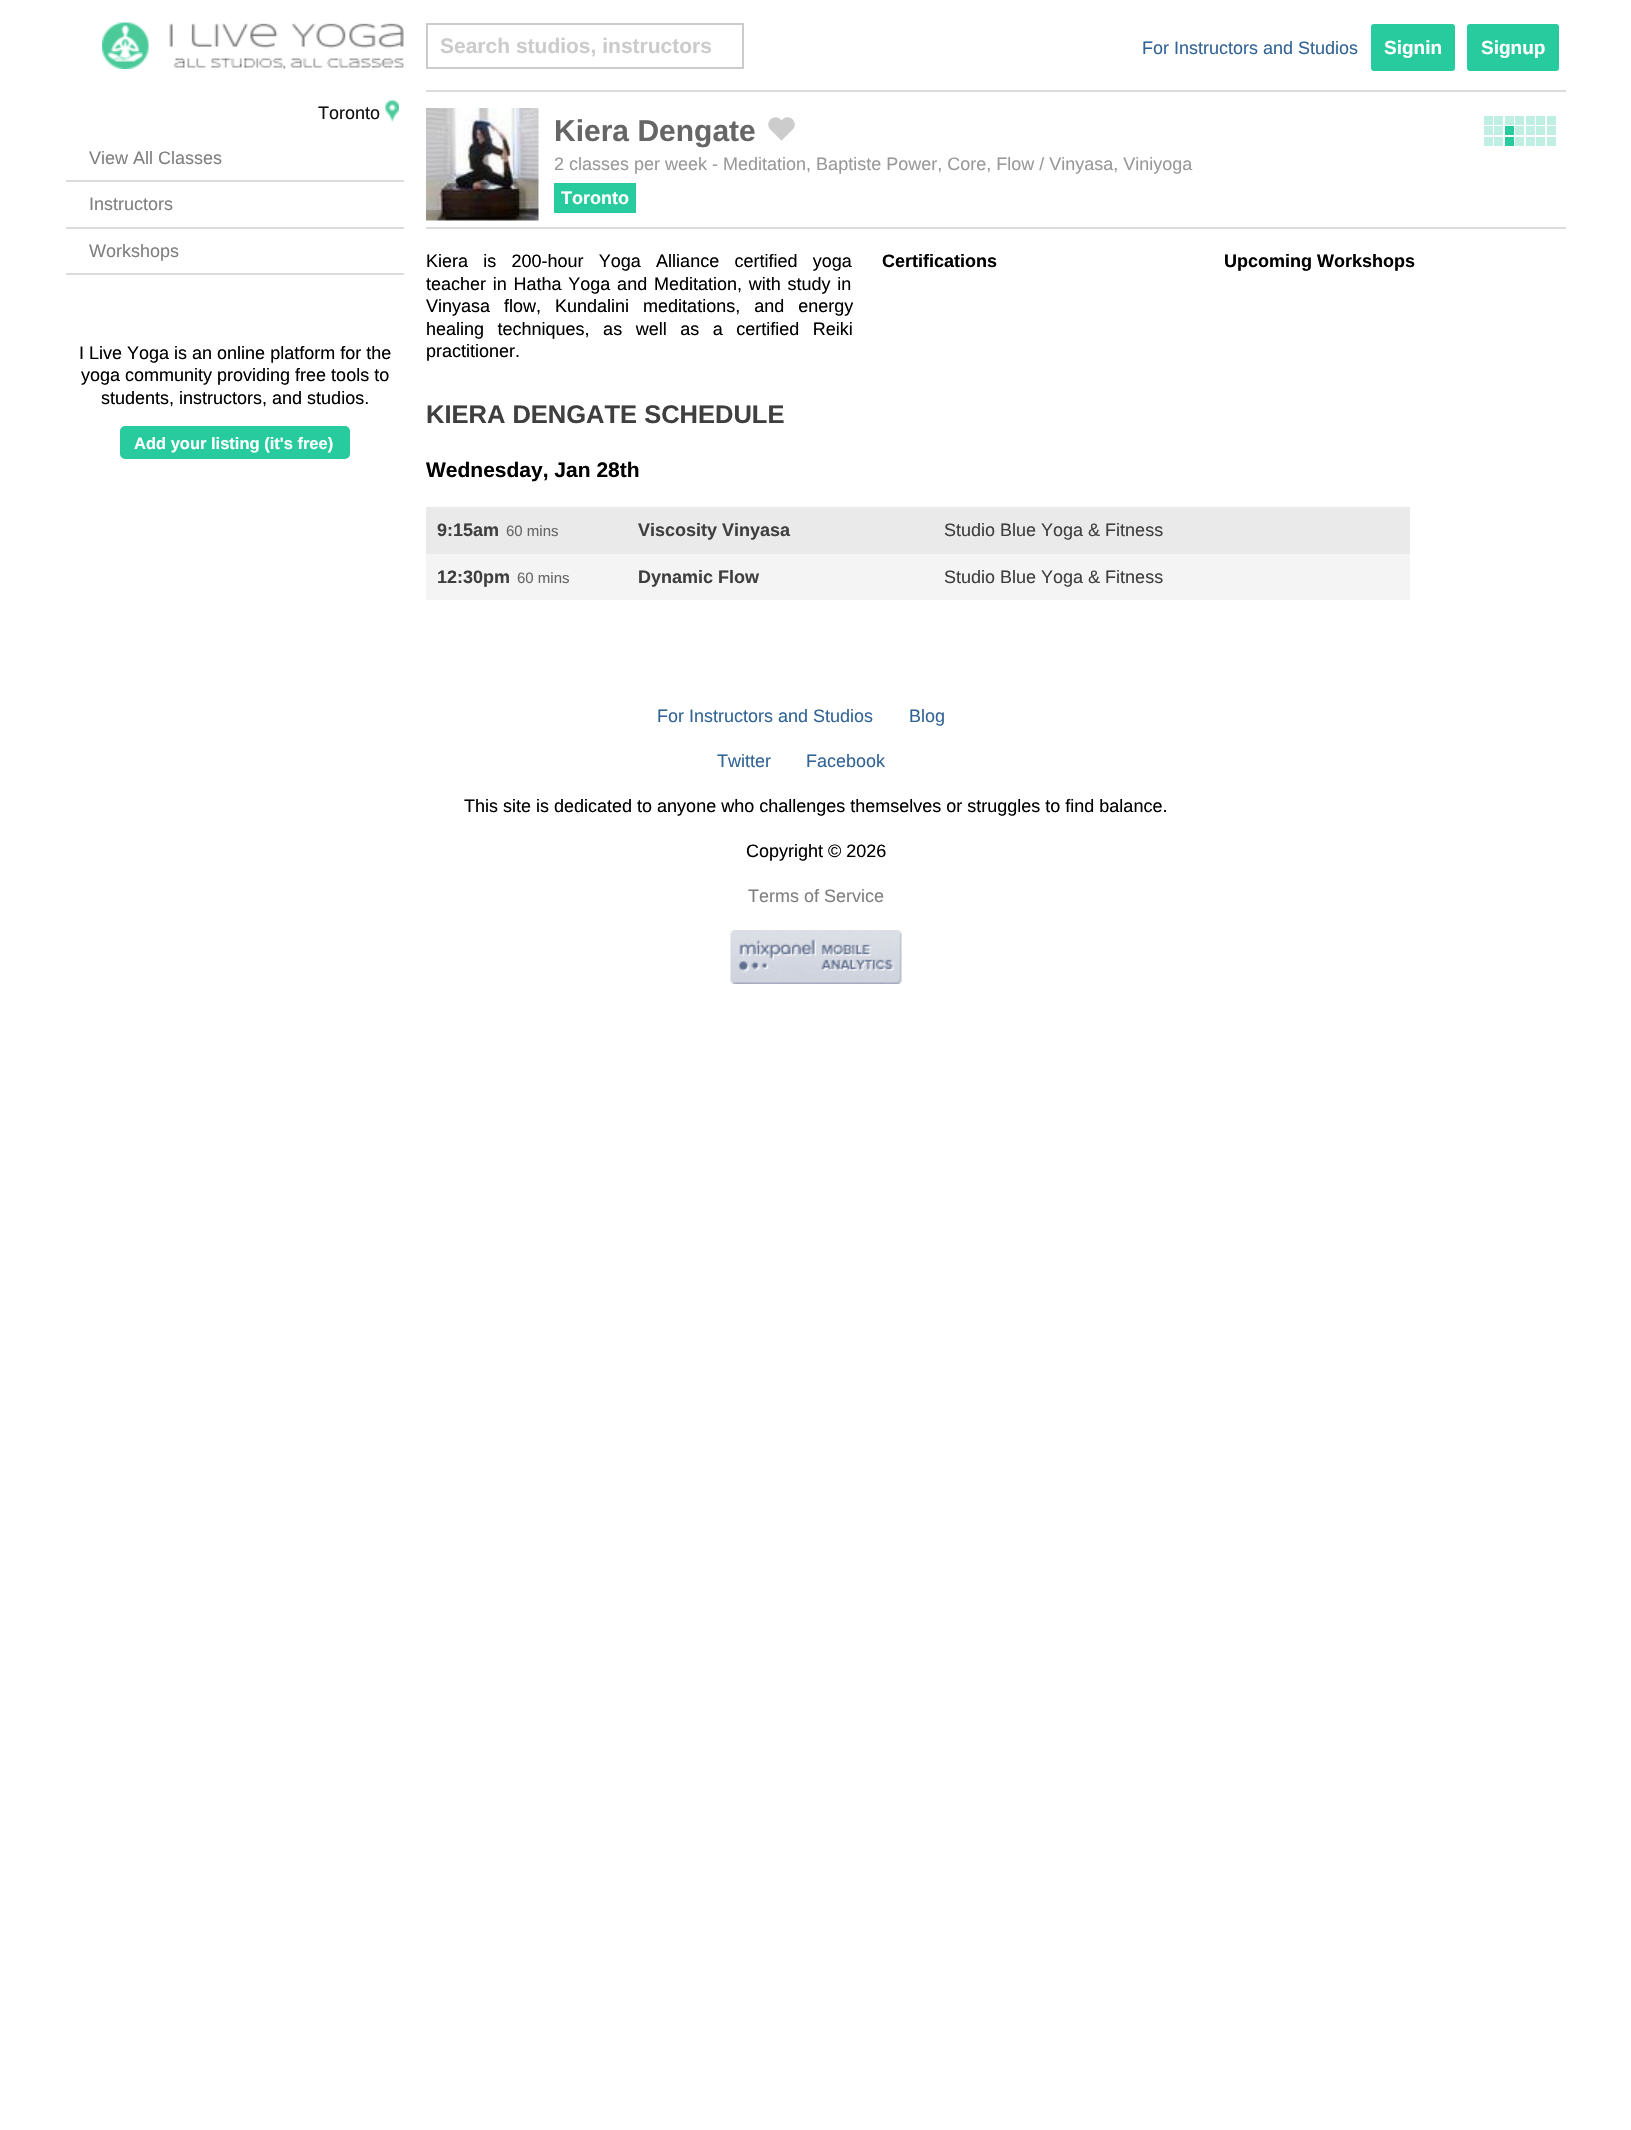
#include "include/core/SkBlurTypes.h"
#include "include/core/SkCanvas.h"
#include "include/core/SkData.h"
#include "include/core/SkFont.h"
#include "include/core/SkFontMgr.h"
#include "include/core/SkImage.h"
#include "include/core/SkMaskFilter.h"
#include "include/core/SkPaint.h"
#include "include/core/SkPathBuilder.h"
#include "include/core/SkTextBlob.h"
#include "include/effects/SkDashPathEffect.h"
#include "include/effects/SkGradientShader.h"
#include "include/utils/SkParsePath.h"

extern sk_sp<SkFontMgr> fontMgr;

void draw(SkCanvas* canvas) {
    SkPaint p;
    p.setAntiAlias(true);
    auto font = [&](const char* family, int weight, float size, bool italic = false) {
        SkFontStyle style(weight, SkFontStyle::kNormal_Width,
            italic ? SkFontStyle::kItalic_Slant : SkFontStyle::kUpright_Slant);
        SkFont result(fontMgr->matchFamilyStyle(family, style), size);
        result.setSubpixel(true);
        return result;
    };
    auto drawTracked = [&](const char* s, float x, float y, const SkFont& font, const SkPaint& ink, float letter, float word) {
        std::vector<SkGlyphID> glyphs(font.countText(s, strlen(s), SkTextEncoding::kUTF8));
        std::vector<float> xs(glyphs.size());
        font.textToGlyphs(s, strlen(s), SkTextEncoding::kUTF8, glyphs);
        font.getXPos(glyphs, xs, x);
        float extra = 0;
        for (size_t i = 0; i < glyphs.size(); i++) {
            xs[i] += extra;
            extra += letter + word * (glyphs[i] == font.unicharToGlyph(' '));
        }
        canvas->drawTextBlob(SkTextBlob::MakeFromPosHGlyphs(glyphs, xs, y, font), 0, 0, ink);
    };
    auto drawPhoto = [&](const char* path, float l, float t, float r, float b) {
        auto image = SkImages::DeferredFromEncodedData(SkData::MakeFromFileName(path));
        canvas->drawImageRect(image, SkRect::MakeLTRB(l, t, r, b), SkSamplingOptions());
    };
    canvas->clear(0xFFFFFFFF);
    p.setStyle(SkPaint::kStroke_Style);
    p.setStrokeWidth(2);
    p.setColor(0xFFCCCCCC);
    canvas->drawRect(SkRect::MakeLTRB(427, 24, 743, 68), p);
    auto font1 = font("Liberation Sans", 700, 21);
    p.setStyle(SkPaint::kFill_Style);
    canvas->drawString("Search studios, instructors", 440, 53, font1, p);
    auto font2 = font("Liberation Sans", 400, 18);
    p.setColor(0xFF326496);
    canvas->drawString("For Instructors and Studios", 1142, 54, font2, p);
    p.setColor(0xFF28CB9E);
    canvas->drawRoundRect(SkRect::MakeLTRB(1371, 24, 1455, 71), 3, 3, p);
    auto font3 = font("Liberation Sans", 700, 19);
    p.setColor(0xFFFFFFFF);
    canvas->drawString("Signin", 1384, 54, font3, p);
    p.setColor(0xFF28CB9E);
    canvas->drawRoundRect(SkRect::MakeLTRB(1467, 24, 1559, 71), 3, 3, p);
    p.setColor(0xFFFFFFFF);
    canvas->drawString("Signup", 1481, 54, font3, p);
    drawPhoto("media/1.png", 102, 22, 404, 69);
    p.setColor(0xFF111111);
    canvas->drawString("Toronto", 318, 119, font2, p);
    drawPhoto("media/2.png", 385, 100, 399, 122);
    p.setColor(0xFFDCDCDC);
    canvas->drawRect(SkRect::MakeLTRB(66, 180, 404, 182), p);
    p.setColor(0xFF808080);
    canvas->drawString("View All Classes", 89, 164, font2, p);
    p.setColor(0xFFDCDCDC);
    canvas->drawRect(SkRect::MakeLTRB(66, 227, 404, 229), p);
    p.setColor(0xFF808080);
    canvas->drawString("Instructors", 89, 210, font2, p);
    p.setColor(0xFFDCDCDC);
    canvas->drawRect(SkRect::MakeLTRB(66, 273, 404, 275), p);
    p.setColor(0xFF808080);
    canvas->drawString("Workshops", 89, 257, font2, p);
    p.setColor(0xFF000000);
    {
        const struct { const char* s; float x, y; } items[] = {
            {"I Live Yoga is an online platform for the", 79, 359},
            {"yoga community providing free tools to", 81, 381},
            {"students, instructors, and studios.", 101, 404},
        };
        for (auto [s, x, y] : items) {
            canvas->drawString(s, x, y, font2, p);
        }
    }
    p.setColor(0xFF28CB9E);
    canvas->drawRoundRect(SkRect::MakeLTRB(121, 427, 349, 458), 4, 4, p);
    p.setStyle(SkPaint::kStroke_Style);
    canvas->drawRoundRect(SkRect::MakeLTRB(121, 427, 349, 458), 4, 4, p);
    auto font4 = font("Liberation Sans", 700, 16.5f);
    p.setStyle(SkPaint::kFill_Style);
    p.setColor(0xFFFFFFFF);
    canvas->drawString("Add your listing (it's free)", 134, 449, font4, p);
    p.setColor(0xFFDCDCDC);
    canvas->drawRect(SkRect::MakeLTRB(426, 90, 1566, 92), p);
    canvas->drawRect(SkRect::MakeLTRB(426, 227, 1566, 229), p);
    drawPhoto("media/3.png", 426, 108, 539, 221);
    auto font5 = font("Liberation Sans", 700, 30);
    p.setColor(0xFF666666);
    canvas->drawString("Kiera Dengate", 554, 141, font5, p);
    drawPhoto("media/4.png", 768, 117, 795, 141);
    p.setColor(0xFF999999);
    canvas->drawString("2 classes per week - Meditation, Baptiste Power, Core, Flow / Vinyasa, Viniyoga", 554, 170, font2, p);
    p.setColor(0xFF28CB9E);
    canvas->drawRect(SkRect::MakeLTRB(554, 183, 636, 213), p);
    auto font6 = font("Liberation Sans", 700, 18);
    p.setColor(0xFFFFFFFF);
    canvas->drawString("Toronto", 561, 204, font6, p);
    {
        const struct { float l, t, r, b; SkColor color; } items[] = {
            {1484, 116, 1493, 125, 0xFFBFEFE2},
            {1484, 126, 1493, 135, 0xFFBFEFE2},
            {1484, 137, 1493, 146, 0xFFBFEFE2},
            {1494, 116, 1503, 125, 0xFFBFEFE2},
            {1494, 126, 1503, 135, 0xFFBFEFE2},
            {1494, 137, 1503, 146, 0xFFBFEFE2},
            {1505, 116, 1514, 125, 0xFFBFEFE2},
            {1505, 126, 1514, 135, 0xFF28CB9E},
            {1505, 137, 1514, 146, 0xFF28CB9E},
            {1515, 116, 1524, 125, 0xFFBFEFE2},
            {1515, 126, 1524, 135, 0xFFBFEFE2},
            {1515, 137, 1524, 146, 0xFFBFEFE2},
            {1526, 116, 1535, 125, 0xFFBFEFE2},
            {1526, 126, 1535, 135, 0xFFBFEFE2},
            {1526, 137, 1535, 146, 0xFFBFEFE2},
            {1536, 116, 1545, 125, 0xFFBFEFE2},
            {1536, 126, 1545, 135, 0xFFBFEFE2},
            {1536, 137, 1545, 146, 0xFFBFEFE2},
            {1547, 116, 1556, 125, 0xFFBFEFE2},
            {1547, 126, 1556, 135, 0xFFBFEFE2},
            {1547, 137, 1556, 146, 0xFFBFEFE2},
        };
        for (auto [l, t, r, b, color] : items) {
            p.setColor(color);
            canvas->drawRect(SkRect::MakeLTRB(l, t, r, b), p);
        }
    }
    p.setColor(0xFF000000);
    drawTracked("Kiera is 200-hour Yoga Alliance certified yoga", 426, 267, font2, p, 0, 10.25f);
    drawTracked("teacher in Hatha Yoga and Meditation, with study in", 426, 290, font2, p, 0, 1.75f);
    drawTracked("Vinyasa flow, Kundalini meditations, and energy", 426, 312, font2, p, 0, 9);
    drawTracked("healing techniques, as well as a certified Reiki", 426, 335, font2, p, 0, 8.5f);
    canvas->drawString("practitioner.", 426, 357, font2, p);
    canvas->drawString("Certifications", 882, 267, font6, p);
    canvas->drawString("Upcoming Workshops", 1224, 267, font6, p);
    auto font7 = font("Liberation Sans", 700, 25.5f);
    p.setColor(0xFF3F3F3F);
    canvas->drawString("KIERA DENGATE SCHEDULE", 426, 423, font7, p);
    p.setColor(0xFF000000);
    canvas->drawString("Wednesday, Jan 28th", 426, 477, font1, p);
    p.setColor(0xFFEAEAEA);
    canvas->drawRect(SkRect::MakeLTRB(426, 507, 1410, 554), p);
    p.setColor(0xFF3F3F3F);
    canvas->drawString("9:15am", 437, 536, font6, p);
    auto font8 = font("Liberation Sans", 400, 15);
    p.setColor(0xFF666666);
    canvas->drawString("60 mins", 506, 536, font8, p);
    p.setColor(0xFF3F3F3F);
    canvas->drawString("Viscosity Vinyasa", 638, 536, font6, p);
    canvas->drawString("Studio Blue Yoga & Fitness", 944, 536, font2, p);
    p.setColor(0xFFF4F4F4);
    canvas->drawRect(SkRect::MakeLTRB(426, 554, 1410, 600), p);
    p.setColor(0xFF3F3F3F);
    canvas->drawString("12:30pm", 437, 583, font6, p);
    p.setColor(0xFF666666);
    canvas->drawString("60 mins", 517, 583, font8, p);
    p.setColor(0xFF3F3F3F);
    canvas->drawString("Dynamic Flow", 638, 583, font6, p);
    canvas->drawString("Studio Blue Yoga & Fitness", 944, 583, font2, p);
    p.setColor(0xFF326496);
    {
        const struct { const char* s; float x, y; } items[] = {
            {"For Instructors and Studios", 657, 722},
            {"Blog", 909, 722},
            {"Twitter", 717, 767},
            {"Facebook", 806, 767},
        };
        for (auto [s, x, y] : items) {
            canvas->drawString(s, x, y, font2, p);
        }
    }
    p.setColor(0xFF000000);
    canvas->drawString("This site is dedicated to anyone who challenges themselves or struggles to find balance.", 464, 812, font2, p);
    canvas->drawString("Copyright © 2026", 746, 857, font2, p);
    p.setColor(0xFF808080);
    canvas->drawString("Terms of Service", 748, 902, font2, p);
    drawPhoto("media/5.png", 730, 930, 902, 984);
}
